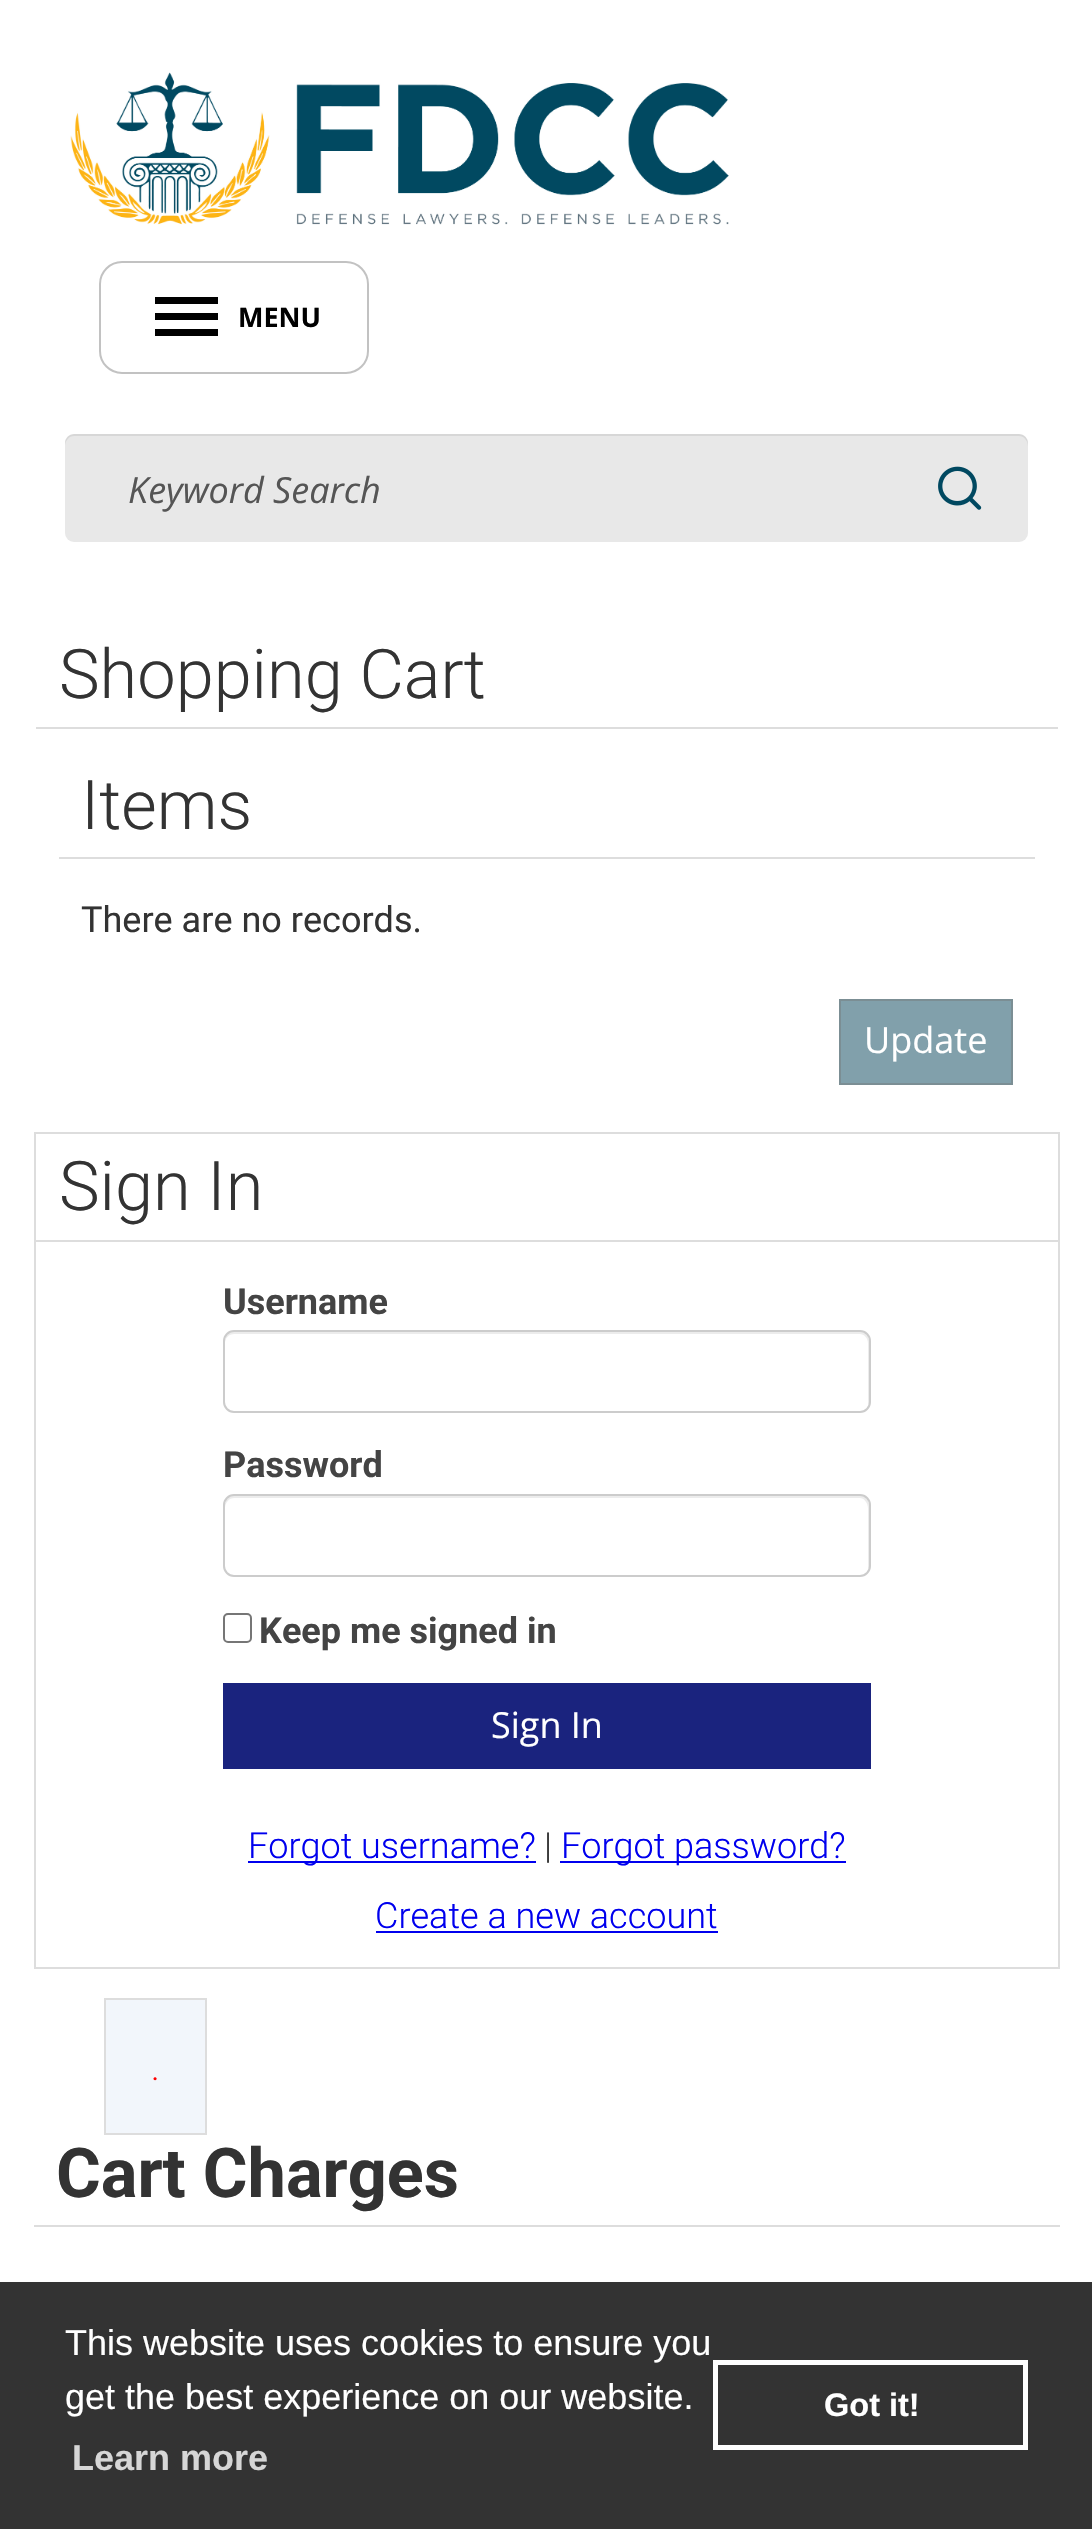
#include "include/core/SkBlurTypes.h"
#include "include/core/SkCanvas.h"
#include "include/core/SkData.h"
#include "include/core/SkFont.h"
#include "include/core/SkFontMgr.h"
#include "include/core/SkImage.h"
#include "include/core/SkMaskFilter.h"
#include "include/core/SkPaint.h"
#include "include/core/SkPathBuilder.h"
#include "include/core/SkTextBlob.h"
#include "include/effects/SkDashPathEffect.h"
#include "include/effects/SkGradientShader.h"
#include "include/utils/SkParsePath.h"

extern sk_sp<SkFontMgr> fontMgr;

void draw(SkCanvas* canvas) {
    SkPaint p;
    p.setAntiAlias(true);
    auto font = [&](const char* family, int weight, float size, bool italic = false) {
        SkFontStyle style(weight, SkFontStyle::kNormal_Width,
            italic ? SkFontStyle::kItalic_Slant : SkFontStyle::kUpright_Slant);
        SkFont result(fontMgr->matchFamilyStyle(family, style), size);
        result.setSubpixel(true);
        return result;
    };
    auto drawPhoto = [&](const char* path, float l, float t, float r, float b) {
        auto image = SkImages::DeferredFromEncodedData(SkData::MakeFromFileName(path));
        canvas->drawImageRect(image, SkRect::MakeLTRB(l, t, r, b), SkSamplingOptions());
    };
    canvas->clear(0xFFFFFFFF);
    drawPhoto("media/1.png", 70, 72, 729, 225);
    p.setStyle(SkPaint::kStroke_Style);
    p.setStrokeWidth(2);
    p.setColor(0xFFC2C2C2);
    canvas->drawRoundRect(SkRect::MakeLTRB(100, 262, 368, 373), 22, 22, p);
    p.setStyle(SkPaint::kFill_Style);
    p.setColor(0xFF000000);
    canvas->drawRect(SkRect::MakeLTRB(155, 297, 218, 304), p);
    canvas->drawRect(SkRect::MakeLTRB(155, 313, 218, 320), p);
    auto font1 = font("Open Sans", 700, 27);
    canvas->drawString("MENU", 238, 327, font1, p);
    canvas->drawRect(SkRect::MakeLTRB(155, 329, 218, 336), p);
    p.setColor(0xFFE8E8E8);
    canvas->drawRoundRect(SkRect::MakeLTRB(65, 434, 1028, 542), 9, 9, p);
    p.setColor(0x12000000);
    canvas->drawPath(SkPathBuilder().moveTo(74, 436).lineTo(1019, 436).cubicTo(1024, 436, 1028, 441, 1028, 446).lineTo(1028, 443).cubicTo(1028, 438, 1024, 434, 1019, 434).lineTo(74, 434).cubicTo(69, 434, 65, 438, 65, 443).lineTo(65, 446).cubicTo(65, 441, 69, 436, 74, 436).close().detach(), p);
    auto font2 = font("Open Sans", 400, 36, true);
    p.setColor(0xFF555555);
    canvas->drawString("Keyword Search", 128, 503, font2, p);
    drawPhoto("media/2.png", 938, 466, 982, 510);
    p.setColor(0xFFDDDDDD);
    canvas->drawRect(SkRect::MakeLTRB(36, 727, 1058, 729), p);
    auto font3 = font("Roboto", 300, 68.5f);
    p.setColor(0xFF333333);
    canvas->drawString("Shopping Cart", 59, 698, font3, p);
    p.setColor(0xFFDDDDDD);
    canvas->drawRect(SkRect::MakeLTRB(59, 857, 1035, 859), p);
    p.setColor(0xFF333333);
    canvas->drawString("Items", 81, 829, font3, p);
    auto font4 = font("Roboto", 400, 36);
    canvas->drawString("There are no records.", 81, 932, font4, p);
    p.setColor(0xFF81A0AB);
    canvas->drawRect(SkRect::MakeLTRB(840, 1000, 1012, 1084), p);
    p.setStyle(SkPaint::kStroke_Style);
    p.setColor(0xFF7B8E94);
    canvas->drawRect(SkRect::MakeLTRB(840, 1000, 1012, 1084), p);
    auto font5 = font("Open Sans", 400, 36);
    p.setStyle(SkPaint::kFill_Style);
    p.setColor(0xFFFFFFFF);
    canvas->drawString("Update", 864, 1053, font5, p);
    p.setStyle(SkPaint::kStroke_Style);
    p.setColor(0xFFDDDDDD);
    canvas->drawRect(SkRect::MakeLTRB(35, 1133, 1059, 1968), p);
    p.setStyle(SkPaint::kFill_Style);
    canvas->drawRect(SkRect::MakeLTRB(36, 1240, 1058, 1242), p);
    p.setColor(0xFF333333);
    canvas->drawString("Sign In", 59, 1210, font3, p);
    auto font6 = font("Roboto", 700, 36);
    p.setColor(0xFF444444);
    canvas->drawString("Username", 223, 1314, font6, p);
    p.setColor(0xFFECECEC);
    canvas->drawPath(SkPathBuilder().moveTo(234, 1334).lineTo(860, 1334).cubicTo(864, 1334, 868, 1338, 868, 1343).lineTo(868, 1404).lineTo(868, 1407).cubicTo(868, 1406, 869, 1404, 869, 1402).lineTo(869, 1341).cubicTo(869, 1336, 865, 1332, 860, 1332).lineTo(234, 1332).cubicTo(229, 1332, 225, 1336, 225, 1341).lineTo(225, 1343).cubicTo(225, 1338, 229, 1334, 234, 1334).close().detach(), p);
    p.setStyle(SkPaint::kStroke_Style);
    p.setColor(0xFFCCCCCC);
    canvas->drawRoundRect(SkRect::MakeLTRB(224, 1331, 870, 1412), 10, 10, p);
    p.setStyle(SkPaint::kFill_Style);
    p.setColor(0xFF444444);
    canvas->drawString("Password", 223, 1477, font6, p);
    p.setColor(0xFFECECEC);
    canvas->drawPath(SkPathBuilder().moveTo(234, 1498).lineTo(860, 1498).cubicTo(864, 1498, 868, 1503, 868, 1508).lineTo(868, 1568).lineTo(868, 1571).cubicTo(868, 1570, 869, 1568, 869, 1566).lineTo(869, 1505).cubicTo(869, 1500, 865, 1496, 860, 1496).lineTo(234, 1496).cubicTo(229, 1496, 225, 1500, 225, 1505).lineTo(225, 1508).cubicTo(225, 1503, 229, 1498, 234, 1498).close().detach(), p);
    p.setStyle(SkPaint::kStroke_Style);
    p.setColor(0xFFCCCCCC);
    canvas->drawRoundRect(SkRect::MakeLTRB(224, 1495, 870, 1576), 10, 10, p);
    p.setColor(0xFF767676);
    canvas->drawRoundRect(SkRect::MakeLTRB(224, 1614, 251, 1642), 4, 4, p);
    p.setStyle(SkPaint::kFill_Style);
    p.setColor(0xFF444444);
    canvas->drawString("Keep me signed in", 259, 1643, font6, p);
    p.setColor(0xFF1A237E);
    canvas->drawRect(SkRect::MakeLTRB(223, 1683, 871, 1769), p);
    p.setColor(0xFFFFFFFF);
    canvas->drawString("Sign In", 491, 1738, font5, p);
    p.setColor(0xFF0000EE);
    canvas->drawRect(SkRect::MakeLTRB(248, 1861, 536, 1863), p);
    auto font7 = font("Roboto", 300, 36);
    canvas->drawString("Forgot username?", 248, 1858, font7, p);
    p.setColor(0xFF333333);
    canvas->drawString("|", 544, 1858, font7, p);
    p.setColor(0xFF0000EE);
    canvas->drawRect(SkRect::MakeLTRB(560, 1861, 846, 1863), p);
    canvas->drawString("Forgot password?", 561, 1858, font7, p);
    canvas->drawString("Create a new account", 375, 1928, font7, p);
    canvas->drawRect(SkRect::MakeLTRB(376, 1931, 718, 1933), p);
    p.setColor(0xFFF2F6FB);
    canvas->drawRect(SkRect::MakeLTRB(105, 1999, 206, 2134), p);
    p.setStyle(SkPaint::kStroke_Style);
    p.setColor(0xFFDDDDDD);
    canvas->drawRect(SkRect::MakeLTRB(105, 1999, 206, 2134), p);
    p.setStyle(SkPaint::kFill_Style);
    p.setColor(0xFFFF0000);
    canvas->drawString(".", 151, 2080, font7, p);
    p.setColor(0xFFDDDDDD);
    canvas->drawRect(SkRect::MakeLTRB(34, 2225, 1060, 2227), p);
    auto font8 = font("Roboto", 700, 68.5f);
    p.setColor(0xFF333333);
    canvas->drawString("Cart Charges", 56, 2197, font8, p);
    canvas->drawRect(SkRect::MakeLTRB(0, 2282, 1092, 2529), p);
    auto font9 = font("Liberation Sans", 400, 36);
    p.setColor(0xFFFFFFFF);
    canvas->drawString("This website uses cookies to ensure you", 65, 2355, font9, p);
    canvas->drawString("get the best experience on our website.", 65, 2409, font9, p);
    auto font10 = font("Liberation Sans", 700, 36);
    p.setColor(0xFFD6D6D6);
    canvas->drawString("Learn more", 72, 2470, font10, p);
    p.setStyle(SkPaint::kStroke_Style);
    p.setStrokeWidth(5);
    p.setColor(0xFFFFFFFF);
    canvas->drawRect(SkRect::MakeLTRB(715.5f, 2362.5f, 1025.5f, 2447.5f), p);
    auto font11 = font("Liberation Sans", 700, 32.5f);
    p.setStyle(SkPaint::kFill_Style);
    canvas->drawString("Got it!", 824, 2416, font11, p);
}
